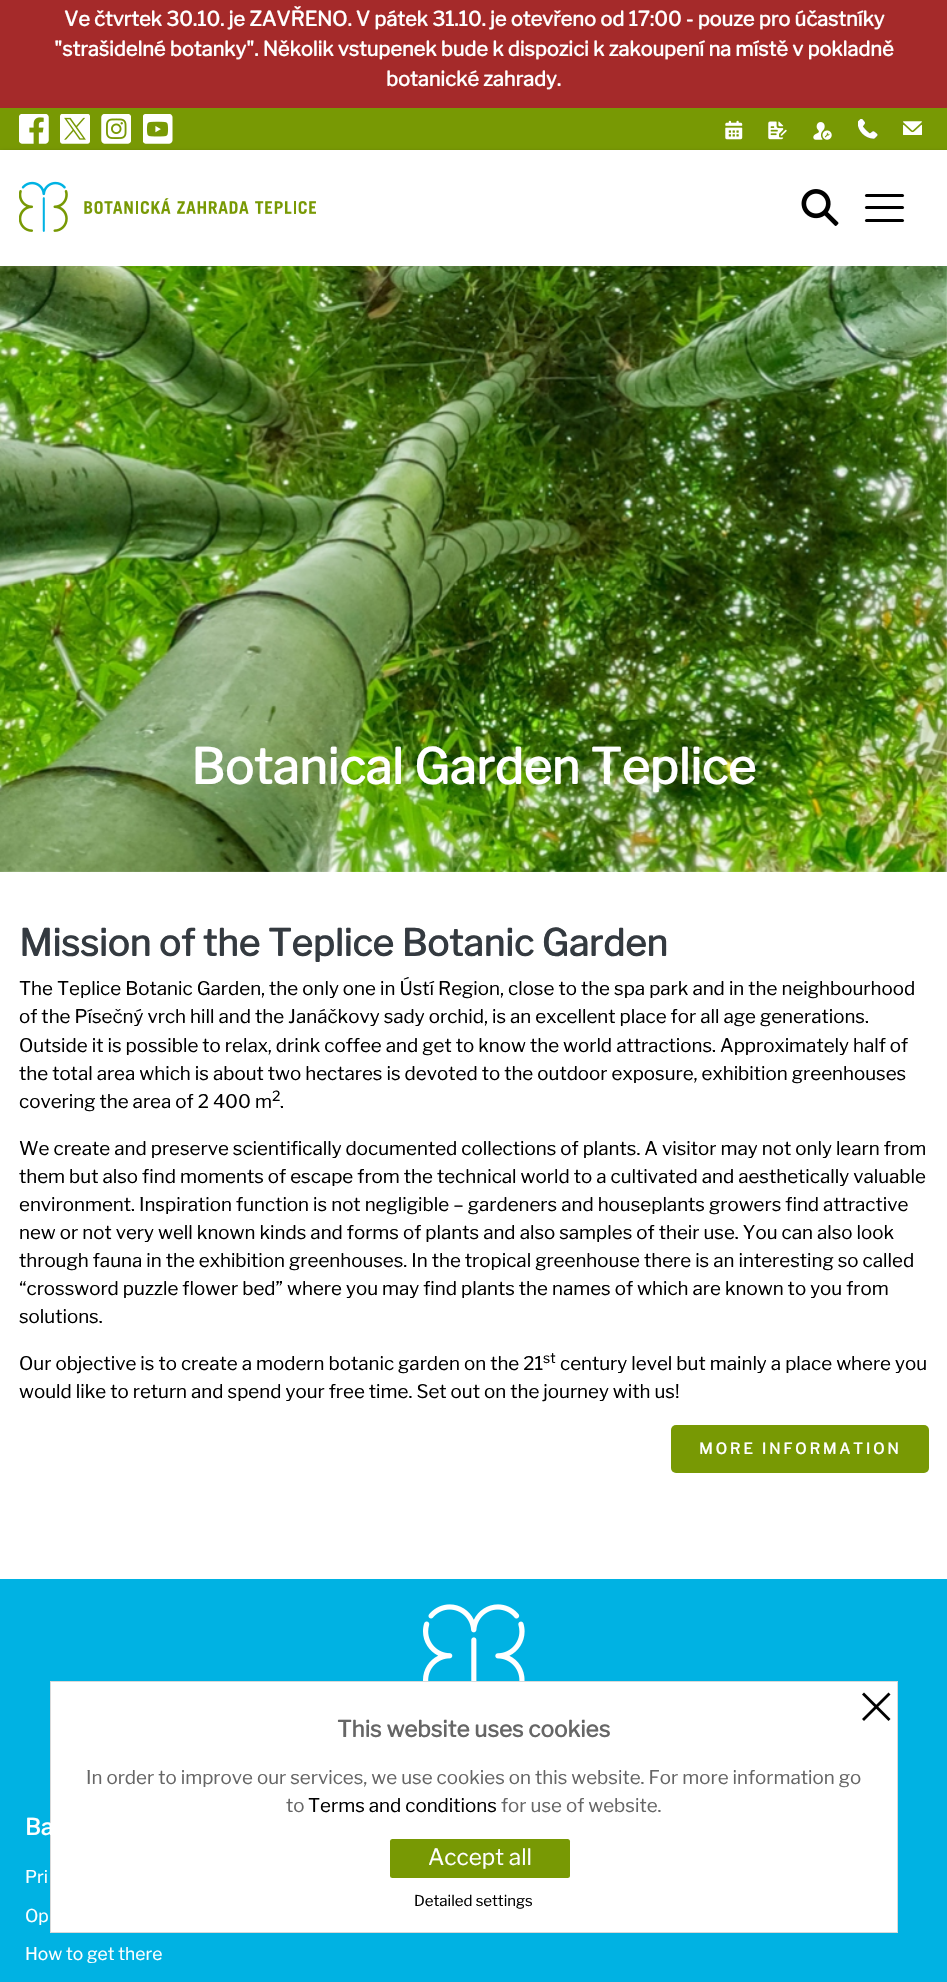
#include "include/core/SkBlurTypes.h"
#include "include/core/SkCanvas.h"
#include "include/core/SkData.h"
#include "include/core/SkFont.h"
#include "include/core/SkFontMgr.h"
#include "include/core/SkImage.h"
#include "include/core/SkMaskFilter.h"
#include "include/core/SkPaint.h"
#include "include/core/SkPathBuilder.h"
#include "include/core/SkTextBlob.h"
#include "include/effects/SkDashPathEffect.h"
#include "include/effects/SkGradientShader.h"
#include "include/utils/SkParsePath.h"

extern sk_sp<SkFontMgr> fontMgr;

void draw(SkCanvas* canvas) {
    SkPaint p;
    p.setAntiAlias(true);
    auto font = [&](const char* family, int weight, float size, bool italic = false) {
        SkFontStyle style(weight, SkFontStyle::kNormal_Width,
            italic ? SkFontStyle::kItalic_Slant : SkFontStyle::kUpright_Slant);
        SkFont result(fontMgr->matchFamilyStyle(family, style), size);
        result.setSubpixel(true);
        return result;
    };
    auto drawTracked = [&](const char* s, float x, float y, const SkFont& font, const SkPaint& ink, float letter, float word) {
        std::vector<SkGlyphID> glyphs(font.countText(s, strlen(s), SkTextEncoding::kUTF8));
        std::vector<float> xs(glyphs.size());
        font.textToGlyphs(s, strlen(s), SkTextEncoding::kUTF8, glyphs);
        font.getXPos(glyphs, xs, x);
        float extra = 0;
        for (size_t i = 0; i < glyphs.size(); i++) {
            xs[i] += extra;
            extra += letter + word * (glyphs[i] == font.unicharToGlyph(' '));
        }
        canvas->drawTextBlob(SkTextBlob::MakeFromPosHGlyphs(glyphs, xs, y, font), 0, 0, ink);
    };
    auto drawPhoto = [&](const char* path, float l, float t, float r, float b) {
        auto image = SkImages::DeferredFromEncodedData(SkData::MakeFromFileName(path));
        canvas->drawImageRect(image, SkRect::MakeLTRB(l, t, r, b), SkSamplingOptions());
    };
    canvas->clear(0xFFFFFFFF);
    p.setColor(0xFFA52A2A);
    canvas->drawRect(SkRect::MakeLTRB(0, 0, 947, 108), p);
    auto font1 = font("Libre Franklin", 700, 20);
    p.setColor(0xFFFFFFFF);
    {
        const struct { const char* s; float x, y; } items[] = {
            {"Ve čtvrtek 30.10. je ZAVŘENO. V pátek 31.10. je otevřeno od 17:00 - pouze pro účastníky", 64, 26},
            {"\"strašidelné botanky\". Několik vstupenek bude k dispozici k zakoupení na místě v pokladně", 54, 56},
            {"botanické zahrady.", 386, 86},
        };
        for (auto [s, x, y] : items) {
            canvas->drawString(s, x, y, font1, p);
        }
    }
    p.setColor(0xFF789904);
    canvas->drawRect(SkRect::MakeLTRB(0, 108, 947, 150), p);
    drawPhoto("media/1.png", 19, 114, 49, 144);
    drawPhoto("media/2.png", 60, 114, 90, 144);
    drawPhoto("media/3.png", 101, 114, 131, 144);
    drawPhoto("media/4.png", 143, 114, 173, 144);
    drawPhoto("media/5.png", 725, 120, 743, 140);
    drawPhoto("media/6.png", 768, 121, 787, 140);
    drawPhoto("media/7.png", 813, 122, 832, 140);
    drawPhoto("media/8.png", 858, 119, 878, 139);
    drawPhoto("media/9.png", 903, 121, 922, 135);
    canvas->save();
    canvas->clipPath(SkPathBuilder(SkPathFillType::kEvenOdd).moveTo(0, 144).lineTo(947, 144).lineTo(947, 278).lineTo(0, 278).close().moveTo(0, 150).lineTo(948, 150).lineTo(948, 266).lineTo(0, 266).close().detach(), true);
    p.setColor(0x80000000);
    p.setMaskFilter(SkMaskFilter::MakeBlur(kNormal_SkBlurStyle, 2.5f));
    canvas->drawRect(SkRect::MakeLTRB(0, 153, 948, 269), p);
    p.setMaskFilter(nullptr);
    canvas->restore();
    drawPhoto("media/10.png", 19, 181, 316, 232);
    drawPhoto("media/11.png", 801, 189, 839, 226);
    p.setColor(0xFF000000);
    canvas->drawRoundRect(SkRect::MakeLTRB(865, 194, 904, 197), 1.5f, 1.5f, p);
    canvas->drawRoundRect(SkRect::MakeLTRB(865, 206, 904, 209), 1.5f, 1.5f, p);
    canvas->drawRoundRect(SkRect::MakeLTRB(865, 219, 904, 222), 1.5f, 1.5f, p);
    drawPhoto("media/12.png", 0, 266, 947, 872);
    auto font2 = font("Libre Franklin", 700, 48.4f);
    p.setColor(0xFFFFFFFF);
    canvas->drawString("Botanical Garden Teplice", 191, 784, font2, p);
    auto font3 = font("Libre Franklin", 700, 36.75f);
    p.setColor(0xFF343A40);
    canvas->drawString("Mission of the Teplice Botanic Garden", 19, 956, font3, p);
    auto font4 = font("Libre Franklin", 400, 18.75f);
    p.setColor(0xFF000000);
    {
        const struct { const char* s; float x, y; } items[] = {
            {"The Teplice Botanic Garden, the only one in Ústí Region, close to the spa park and in the neighbourhood", 19, 995},
            {"of the Písečný vrch hill and the Janáčkovy sady orchid, is an excellent place for all age generations.", 19, 1023},
            {"Outside it is possible to relax, drink coffee and get to know the world attractions. Approximately half of", 19, 1052},
            {"the total area which is about two hectares is devoted to the outdoor exposure, exhibition greenhouses", 19, 1080},
            {"covering the area of 2 400 m", 19, 1108},
        };
        for (auto [s, x, y] : items) {
            canvas->drawString(s, x, y, font4, p);
        }
    }
    auto font5 = font("Libre Franklin", 400, 14);
    canvas->drawString("2", 272, 1101, font5, p);
    {
        const struct { const char* s; float x, y; } items[] = {
            {".", 280, 1108},
            {"We create and preserve scientifically documented collections of plants. A visitor may not only learn from", 19, 1155},
            {"them but also find moments of escape from the technical world to a cultivated and aesthetically valuable", 19, 1183},
            {"environment. Inspiration function is not negligible – gardeners and houseplants growers find attractive", 19, 1211},
            {"new or not very well known kinds and forms of plants and also samples of their use. You can also look", 19, 1239},
            {"through fauna in the exhibition greenhouses. In the tropical greenhouse there is an interesting so called", 19, 1267},
            {"“crossword puzzle flower bed” where you may find plants the names of which are known to you from", 19, 1295},
            {"solutions.", 19, 1323},
            {"Our objective is to create a modern botanic garden on the 21", 19, 1370},
        };
        for (auto [s, x, y] : items) {
            canvas->drawString(s, x, y, font4, p);
        }
    }
    canvas->drawString("st", 543, 1363, font5, p);
    canvas->drawString("century level but mainly a place where you", 560, 1370, font4, p);
    canvas->drawString("would like to return and spend your free time. Set out on the journey with us!", 19, 1398, font4, p);
    p.setColor(0xFF789904);
    canvas->drawRoundRect(SkRect::MakeLTRB(671, 1425, 929, 1473), 5, 5, p);
    auto font6 = font("Libre Franklin", 700, 15);
    p.setColor(0xFFFFFFFF);
    drawTracked("MORE INFORMATION", 699, 1454, font6, p, 2.9f, 0);
    p.setColor(0xFF00B2E3);
    canvas->drawRect(SkRect::MakeLTRB(0, 1579, 947, 1982), p);
    p.setColor(0xFFFFFFFF);
    canvas->drawRect(SkRect::MakeLTRB(50.5f, 1681.5f, 897.5f, 1932.5f), p);
    p.setStyle(SkPaint::kStroke_Style);
    p.setStrokeWidth(1);
    p.setColor(0xFFD9D9D9);
    canvas->drawRect(SkRect::MakeLTRB(50.5f, 1681.5f, 897.5f, 1932.5f), p);
    p.setStyle(SkPaint::kFill_Style);
    p.setColor(0xFF000000);
    canvas->drawPath(SkPathBuilder().moveTo(888.5f, 1692.5f).lineTo(890.5f, 1694.5f).lineTo(864, 1721).lineTo(862, 1719).close().detach(), p);
    canvas->drawPath(SkPathBuilder().moveTo(862, 1694.5f).lineTo(864, 1692.5f).lineTo(890.5f, 1719).lineTo(888.5f, 1721).close().detach(), p);
    auto font7 = font("Libre Franklin", 700, 22.5f);
    p.setColor(0xFF666666);
    canvas->drawString("This website uses cookies", 337, 1737, font7, p);
    canvas->drawString("In order to improve our services, we use cookies on this website. For more information go", 86, 1784, font4, p);
    canvas->drawString("to", 286, 1812, font4, p);
    p.setColor(0xFF000000);
    canvas->drawString("Terms and conditions", 308, 1812, font4, p);
    p.setColor(0xFF666666);
    canvas->drawString("for use of website.", 501, 1812, font4, p);
    p.setColor(0xFF789904);
    canvas->drawRoundRect(SkRect::MakeLTRB(390, 1839, 570, 1878), 2.5f, 2.5f, p);
    auto font8 = font("Libre Franklin", 400, 22.5f);
    p.setColor(0xFFFFFFFF);
    canvas->drawString("Accept all", 428, 1865, font8, p);
    auto font9 = font("Libre Franklin", 400, 15);
    p.setColor(0xFF000000);
    canvas->drawString("Detailed settings", 414, 1906, font9, p);
    drawPhoto("media/13.png", 423, 1604, 525, 1681);
    p.setColor(0xFFFFFFFF);
    canvas->drawString("Ba", 25, 1835, font7, p);
    auto font10 = font("Libre Franklin", 400, 17.5f);
    {
        const struct { const char* s; float x, y; } items[] = {
            {"Pri", 25, 1883},
            {"Op", 25, 1922},
            {"How to get there", 25, 1960},
        };
        for (auto [s, x, y] : items) {
            canvas->drawString(s, x, y, font10, p);
        }
    }
}
